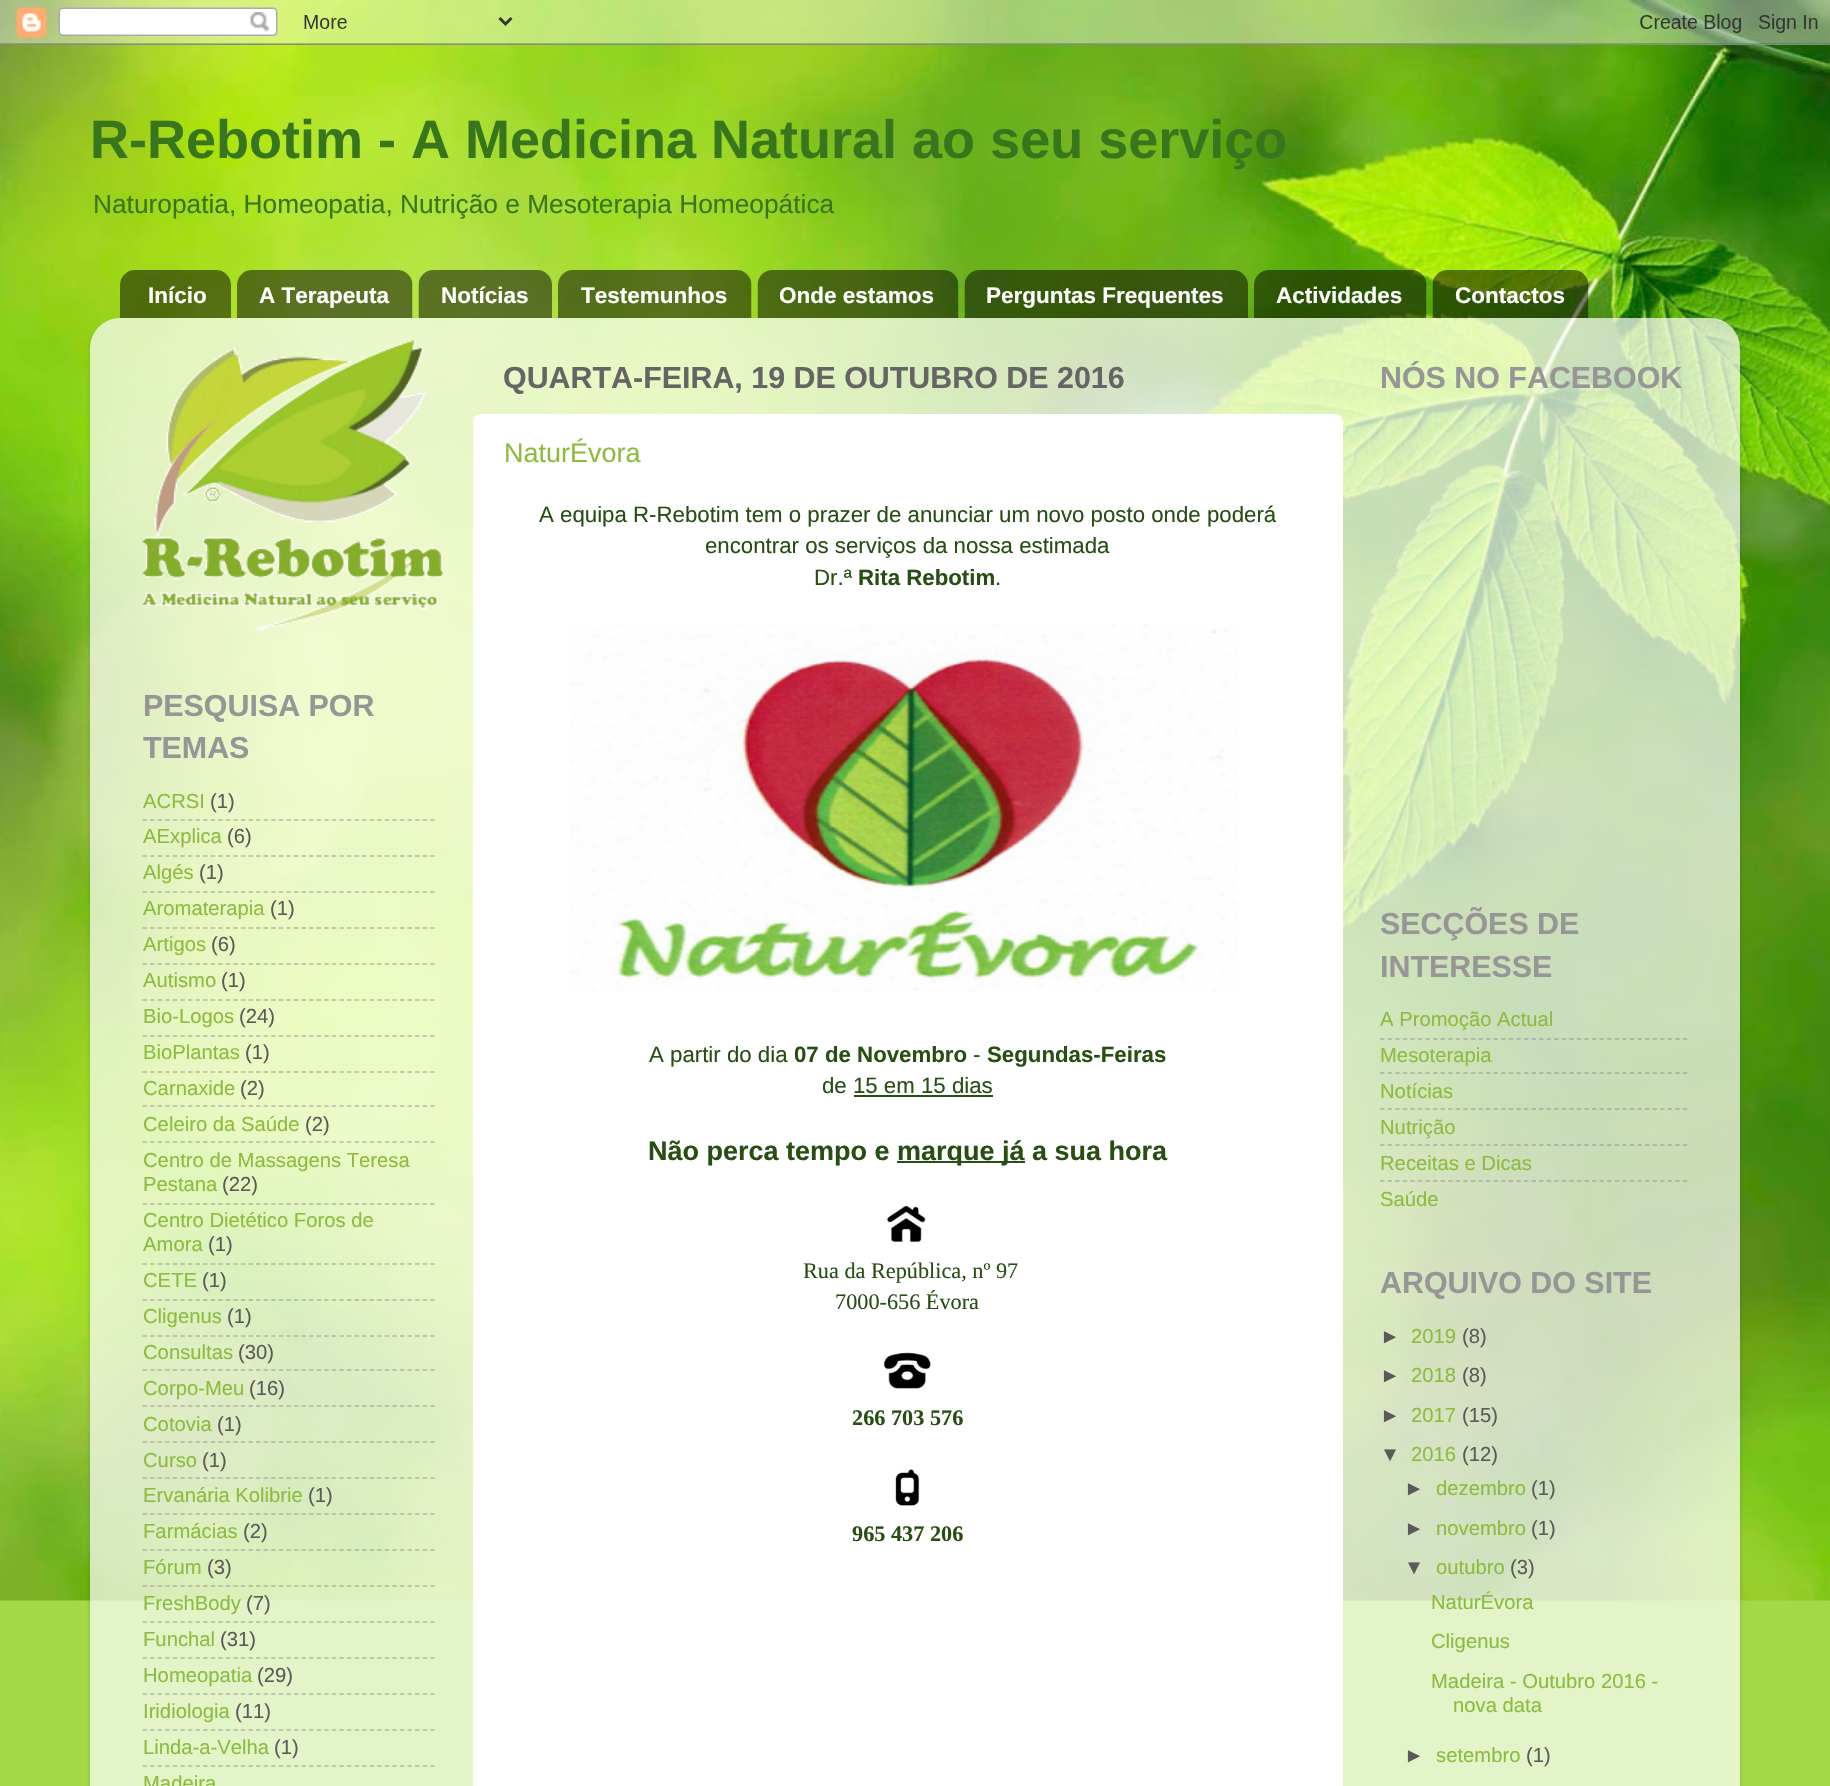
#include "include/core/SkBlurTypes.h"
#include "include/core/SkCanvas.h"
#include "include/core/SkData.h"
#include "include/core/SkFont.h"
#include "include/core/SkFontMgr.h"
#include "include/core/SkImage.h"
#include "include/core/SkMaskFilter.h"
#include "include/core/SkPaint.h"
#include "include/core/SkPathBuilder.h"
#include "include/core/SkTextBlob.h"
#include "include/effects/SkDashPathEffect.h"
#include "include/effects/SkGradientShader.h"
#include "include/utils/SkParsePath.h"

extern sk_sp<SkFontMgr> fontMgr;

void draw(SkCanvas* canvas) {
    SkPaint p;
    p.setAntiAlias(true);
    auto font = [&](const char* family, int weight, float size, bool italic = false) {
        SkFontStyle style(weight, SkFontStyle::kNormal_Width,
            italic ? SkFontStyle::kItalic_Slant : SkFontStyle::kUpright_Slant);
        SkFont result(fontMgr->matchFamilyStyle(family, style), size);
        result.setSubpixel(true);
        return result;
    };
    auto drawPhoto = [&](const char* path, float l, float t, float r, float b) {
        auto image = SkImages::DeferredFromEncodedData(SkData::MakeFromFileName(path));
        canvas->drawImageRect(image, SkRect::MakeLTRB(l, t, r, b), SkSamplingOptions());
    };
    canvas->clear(0xFFA3D848);
    drawPhoto("media/1.png", 0, 0, 1830, 1601);
    drawPhoto("media/2.png", 0, 0, 1830, 45);
    auto font1 = font("Liberation Sans", 700, 54);
    p.setColor(0xFF38761D);
    canvas->drawString("R-Rebotim - A Medicina Natural ao seu serviço", 90, 158, font1, p);
    auto font2 = font("Liberation Sans", 400, 26.3f);
    canvas->drawString("Naturopatia, Homeopatia, Nutrição e Mesoterapia Homeopática", 93, 213, font2, p);
    drawPhoto("media/3.png", 120, 270, 231, 318);
    auto font3 = font("Liberation Sans", 700, 22.5f);
    p.setColor(0xFFFFFFFF);
    canvas->drawString("Início", 148, 303, font3, p);
    drawPhoto("media/4.png", 237, 270, 413, 318);
    canvas->drawString("A Terapeuta", 259, 303, font3, p);
    drawPhoto("media/5.png", 418, 270, 552, 318);
    canvas->drawString("Notícias", 441, 303, font3, p);
    drawPhoto("media/6.png", 558, 270, 752, 318);
    canvas->drawString("Testemunhos", 581, 303, font3, p);
    drawPhoto("media/7.png", 757, 270, 959, 318);
    canvas->drawString("Onde estamos", 779, 303, font3, p);
    drawPhoto("media/8.png", 964, 270, 1248, 318);
    canvas->drawString("Perguntas Frequentes", 986, 303, font3, p);
    drawPhoto("media/9.png", 1254, 270, 1427, 318);
    canvas->drawString("Actividades", 1276, 303, font3, p);
    drawPhoto("media/10.png", 1432, 270, 1589, 318);
    canvas->drawString("Contactos", 1455, 303, font3, p);
    canvas->save();
    canvas->clipPath(SkPathBuilder(SkPathFillType::kEvenOdd).moveTo(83, 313).lineTo(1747, 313).lineTo(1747, 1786).lineTo(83, 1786).close().moveTo(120, 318).lineTo(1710, 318).cubicTo(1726.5f, 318, 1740, 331.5f, 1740, 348).lineTo(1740, 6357).lineTo(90, 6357).lineTo(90, 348).cubicTo(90, 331.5f, 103.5f, 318, 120, 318).close().detach(), true);
    p.setColor(0x26000000);
    p.setMaskFilter(SkMaskFilter::MakeBlur(kNormal_SkBlurStyle, 2));
    canvas->drawRoundRect(SkRect::MakeLTRB(90, 320, 1740, 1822), 30, 30, p);
    p.setMaskFilter(nullptr);
    canvas->restore();
    drawPhoto("media/11.png", 90, 318, 1740, 1786);
    drawPhoto("media/12.png", 142, 340, 443, 630);
    auto font4 = font("Liberation Sans", 700, 30.4f);
    p.setColor(0xFF969696);
    canvas->drawString("PESQUISA POR", 143, 716, font4, p);
    canvas->drawString("TEMAS", 143, 758, font4, p);
    auto font5 = font("Liberation Sans", 400, 20.25f);
    p.setColor(0xFF8DBB3E);
    canvas->drawString("ACRSI", 143, 808, font5, p);
    p.setColor(0xFF5B5959);
    canvas->drawString("(1)", 210, 808, font5, p);
    p.setStyle(SkPaint::kStroke_Style);
    p.setStrokeWidth(1.5f);
    p.setColor(0x80808080);
    p.setPathEffect(SkDashPathEffect::Make({{4.5f, 3.07f}}, 0));
    canvas->drawPath(SkPathBuilder().moveTo(142.5f, 820).lineTo(435, 820).detach(), p);
    p.setPathEffect(nullptr);
    p.setStyle(SkPaint::kFill_Style);
    p.setColor(0xFF8DBB3E);
    canvas->drawString("AExplica", 143, 843, font5, p);
    p.setColor(0xFF5B5959);
    canvas->drawString("(6)", 227, 843, font5, p);
    p.setStyle(SkPaint::kStroke_Style);
    p.setColor(0x80808080);
    p.setPathEffect(SkDashPathEffect::Make({{4.5f, 3.07f}}, 0));
    canvas->drawPath(SkPathBuilder().moveTo(142.5f, 856).lineTo(435, 856).detach(), p);
    p.setPathEffect(nullptr);
    p.setStyle(SkPaint::kFill_Style);
    p.setColor(0xFF8DBB3E);
    canvas->drawString("Algés", 143, 879, font5, p);
    p.setColor(0xFF5B5959);
    canvas->drawString("(1)", 199, 879, font5, p);
    p.setStyle(SkPaint::kStroke_Style);
    p.setColor(0x80808080);
    p.setPathEffect(SkDashPathEffect::Make({{4.5f, 3.07f}}, 0));
    canvas->drawPath(SkPathBuilder().moveTo(142.5f, 892).lineTo(435, 892).detach(), p);
    p.setPathEffect(nullptr);
    p.setStyle(SkPaint::kFill_Style);
    p.setColor(0xFF8DBB3E);
    canvas->drawString("Aromaterapia", 143, 915, font5, p);
    p.setColor(0xFF5B5959);
    canvas->drawString("(1)", 270, 915, font5, p);
    p.setStyle(SkPaint::kStroke_Style);
    p.setColor(0x80808080);
    p.setPathEffect(SkDashPathEffect::Make({{4.5f, 3.07f}}, 0));
    canvas->drawPath(SkPathBuilder().moveTo(142.5f, 928).lineTo(435, 928).detach(), p);
    p.setPathEffect(nullptr);
    p.setStyle(SkPaint::kFill_Style);
    p.setColor(0xFF8DBB3E);
    canvas->drawString("Artigos", 143, 951, font5, p);
    p.setColor(0xFF5B5959);
    canvas->drawString("(6)", 211, 951, font5, p);
    p.setStyle(SkPaint::kStroke_Style);
    p.setColor(0x80808080);
    p.setPathEffect(SkDashPathEffect::Make({{4.5f, 3.07f}}, 0));
    canvas->drawPath(SkPathBuilder().moveTo(142.5f, 964).lineTo(435, 964).detach(), p);
    p.setPathEffect(nullptr);
    p.setStyle(SkPaint::kFill_Style);
    p.setColor(0xFF8DBB3E);
    canvas->drawString("Autismo", 143, 987, font5, p);
    p.setColor(0xFF5B5959);
    canvas->drawString("(1)", 221, 987, font5, p);
    p.setStyle(SkPaint::kStroke_Style);
    p.setColor(0x80808080);
    p.setPathEffect(SkDashPathEffect::Make({{4.5f, 3.07f}}, 0));
    canvas->drawPath(SkPathBuilder().moveTo(142.5f, 1000).lineTo(435, 1000).detach(), p);
    p.setPathEffect(nullptr);
    p.setStyle(SkPaint::kFill_Style);
    p.setColor(0xFF8DBB3E);
    canvas->drawString("Bio-Logos", 143, 1023, font5, p);
    p.setColor(0xFF5B5959);
    canvas->drawString("(24)", 239, 1023, font5, p);
    p.setStyle(SkPaint::kStroke_Style);
    p.setColor(0x80808080);
    p.setPathEffect(SkDashPathEffect::Make({{4.5f, 3.07f}}, 0));
    canvas->drawPath(SkPathBuilder().moveTo(142.5f, 1036).lineTo(435, 1036).detach(), p);
    p.setPathEffect(nullptr);
    p.setStyle(SkPaint::kFill_Style);
    p.setColor(0xFF8DBB3E);
    canvas->drawString("BioPlantas", 143, 1059, font5, p);
    p.setColor(0xFF5B5959);
    canvas->drawString("(1)", 245, 1059, font5, p);
    p.setStyle(SkPaint::kStroke_Style);
    p.setColor(0x80808080);
    p.setPathEffect(SkDashPathEffect::Make({{4.5f, 3.07f}}, 0));
    canvas->drawPath(SkPathBuilder().moveTo(142.5f, 1072).lineTo(435, 1072).detach(), p);
    p.setPathEffect(nullptr);
    p.setStyle(SkPaint::kFill_Style);
    p.setColor(0xFF8DBB3E);
    canvas->drawString("Carnaxide", 143, 1095, font5, p);
    p.setColor(0xFF5B5959);
    canvas->drawString("(2)", 240, 1095, font5, p);
    p.setStyle(SkPaint::kStroke_Style);
    p.setColor(0x80808080);
    p.setPathEffect(SkDashPathEffect::Make({{4.5f, 3.07f}}, 0));
    canvas->drawPath(SkPathBuilder().moveTo(142.5f, 1106).lineTo(435, 1106).detach(), p);
    p.setPathEffect(nullptr);
    p.setStyle(SkPaint::kFill_Style);
    p.setColor(0xFF8DBB3E);
    canvas->drawString("Celeiro da Saúde", 143, 1131, font5, p);
    p.setColor(0xFF5B5959);
    canvas->drawString("(2)", 305, 1131, font5, p);
    p.setStyle(SkPaint::kStroke_Style);
    p.setColor(0x80808080);
    p.setPathEffect(SkDashPathEffect::Make({{4.5f, 3.07f}}, 0));
    canvas->drawPath(SkPathBuilder().moveTo(142.5f, 1142).lineTo(435, 1142).detach(), p);
    p.setPathEffect(nullptr);
    p.setStyle(SkPaint::kFill_Style);
    p.setColor(0xFF8DBB3E);
    canvas->drawString("Centro de Massagens Teresa", 143, 1167, font5, p);
    canvas->drawString("Pestana", 143, 1191, font5, p);
    p.setColor(0xFF5B5959);
    canvas->drawString("(22)", 222, 1191, font5, p);
    p.setStyle(SkPaint::kStroke_Style);
    p.setColor(0x80808080);
    p.setPathEffect(SkDashPathEffect::Make({{4.5f, 3.07f}}, 0));
    canvas->drawPath(SkPathBuilder().moveTo(142.5f, 1204).lineTo(435, 1204).detach(), p);
    p.setPathEffect(nullptr);
    p.setStyle(SkPaint::kFill_Style);
    p.setColor(0xFF8DBB3E);
    canvas->drawString("Centro Dietético Foros de", 143, 1227, font5, p);
    canvas->drawString("Amora", 143, 1251, font5, p);
    p.setColor(0xFF5B5959);
    canvas->drawString("(1)", 208, 1251, font5, p);
    p.setStyle(SkPaint::kStroke_Style);
    p.setColor(0x80808080);
    p.setPathEffect(SkDashPathEffect::Make({{4.5f, 3.07f}}, 0));
    canvas->drawPath(SkPathBuilder().moveTo(142.5f, 1264).lineTo(435, 1264).detach(), p);
    p.setPathEffect(nullptr);
    p.setStyle(SkPaint::kFill_Style);
    p.setColor(0xFF8DBB3E);
    canvas->drawString("CETE", 143, 1287, font5, p);
    p.setColor(0xFF5B5959);
    canvas->drawString("(1)", 202, 1287, font5, p);
    p.setStyle(SkPaint::kStroke_Style);
    p.setColor(0x80808080);
    p.setPathEffect(SkDashPathEffect::Make({{4.5f, 3.07f}}, 0));
    canvas->drawPath(SkPathBuilder().moveTo(142.5f, 1300).lineTo(435, 1300).detach(), p);
    p.setPathEffect(nullptr);
    p.setStyle(SkPaint::kFill_Style);
    p.setColor(0xFF8DBB3E);
    canvas->drawString("Cligenus", 143, 1323, font5, p);
    p.setColor(0xFF5B5959);
    canvas->drawString("(1)", 227, 1323, font5, p);
    p.setStyle(SkPaint::kStroke_Style);
    p.setColor(0x80808080);
    p.setPathEffect(SkDashPathEffect::Make({{4.5f, 3.07f}}, 0));
    canvas->drawPath(SkPathBuilder().moveTo(142.5f, 1336).lineTo(435, 1336).detach(), p);
    p.setPathEffect(nullptr);
    p.setStyle(SkPaint::kFill_Style);
    p.setColor(0xFF8DBB3E);
    canvas->drawString("Consultas", 143, 1359, font5, p);
    p.setColor(0xFF5B5959);
    canvas->drawString("(30)", 238, 1359, font5, p);
    p.setStyle(SkPaint::kStroke_Style);
    p.setColor(0x80808080);
    p.setPathEffect(SkDashPathEffect::Make({{4.5f, 3.07f}}, 0));
    canvas->drawPath(SkPathBuilder().moveTo(142.5f, 1370).lineTo(435, 1370).detach(), p);
    p.setPathEffect(nullptr);
    p.setStyle(SkPaint::kFill_Style);
    p.setColor(0xFF8DBB3E);
    canvas->drawString("Corpo-Meu", 143, 1395, font5, p);
    p.setColor(0xFF5B5959);
    canvas->drawString("(16)", 249, 1395, font5, p);
    p.setStyle(SkPaint::kStroke_Style);
    p.setColor(0x80808080);
    p.setPathEffect(SkDashPathEffect::Make({{4.5f, 3.07f}}, 0));
    canvas->drawPath(SkPathBuilder().moveTo(142.5f, 1406).lineTo(435, 1406).detach(), p);
    p.setPathEffect(nullptr);
    p.setStyle(SkPaint::kFill_Style);
    p.setColor(0xFF8DBB3E);
    canvas->drawString("Cotovia", 143, 1431, font5, p);
    p.setColor(0xFF5B5959);
    canvas->drawString("(1)", 217, 1431, font5, p);
    p.setStyle(SkPaint::kStroke_Style);
    p.setColor(0x80808080);
    p.setPathEffect(SkDashPathEffect::Make({{4.5f, 3.07f}}, 0));
    canvas->drawPath(SkPathBuilder().moveTo(142.5f, 1442).lineTo(435, 1442).detach(), p);
    p.setPathEffect(nullptr);
    p.setStyle(SkPaint::kFill_Style);
    p.setColor(0xFF8DBB3E);
    canvas->drawString("Curso", 143, 1467, font5, p);
    p.setColor(0xFF5B5959);
    canvas->drawString("(1)", 202, 1467, font5, p);
    p.setStyle(SkPaint::kStroke_Style);
    p.setColor(0x80808080);
    p.setPathEffect(SkDashPathEffect::Make({{4.5f, 3.07f}}, 0));
    canvas->drawPath(SkPathBuilder().moveTo(142.5f, 1478).lineTo(435, 1478).detach(), p);
    p.setPathEffect(nullptr);
    p.setStyle(SkPaint::kFill_Style);
    p.setColor(0xFF8DBB3E);
    canvas->drawString("Ervanária Kolibrie", 143, 1502, font5, p);
    p.setColor(0xFF5B5959);
    canvas->drawString("(1)", 308, 1502, font5, p);
    p.setStyle(SkPaint::kStroke_Style);
    p.setColor(0x80808080);
    p.setPathEffect(SkDashPathEffect::Make({{4.5f, 3.07f}}, 0));
    canvas->drawPath(SkPathBuilder().moveTo(142.5f, 1514).lineTo(435, 1514).detach(), p);
    p.setPathEffect(nullptr);
    p.setStyle(SkPaint::kFill_Style);
    p.setColor(0xFF8DBB3E);
    canvas->drawString("Farmácias", 143, 1538, font5, p);
    p.setColor(0xFF5B5959);
    canvas->drawString("(2)", 243, 1538, font5, p);
    p.setStyle(SkPaint::kStroke_Style);
    p.setColor(0x80808080);
    p.setPathEffect(SkDashPathEffect::Make({{4.5f, 3.07f}}, 0));
    canvas->drawPath(SkPathBuilder().moveTo(142.5f, 1550).lineTo(435, 1550).detach(), p);
    p.setPathEffect(nullptr);
    p.setStyle(SkPaint::kFill_Style);
    p.setColor(0xFF8DBB3E);
    canvas->drawString("Fórum", 143, 1574, font5, p);
    p.setColor(0xFF5B5959);
    canvas->drawString("(3)", 207, 1574, font5, p);
    p.setStyle(SkPaint::kStroke_Style);
    p.setColor(0x80808080);
    p.setPathEffect(SkDashPathEffect::Make({{4.5f, 3.07f}}, 0));
    canvas->drawPath(SkPathBuilder().moveTo(142.5f, 1586).lineTo(435, 1586).detach(), p);
    p.setPathEffect(nullptr);
    p.setStyle(SkPaint::kFill_Style);
    p.setColor(0xFF8DBB3E);
    canvas->drawString("FreshBody", 143, 1610, font5, p);
    p.setColor(0xFF5B5959);
    canvas->drawString("(7)", 246, 1610, font5, p);
    p.setStyle(SkPaint::kStroke_Style);
    p.setColor(0xFFB2BAA4);
    p.setPathEffect(SkDashPathEffect::Make({{4.5f, 3.07f}}, 0));
    canvas->drawPath(SkPathBuilder().moveTo(142.5f, 1622).lineTo(435, 1622).detach(), p);
    p.setPathEffect(nullptr);
    p.setStyle(SkPaint::kFill_Style);
    p.setColor(0xFF8DBB3E);
    canvas->drawString("Funchal", 143, 1646, font5, p);
    p.setColor(0xFF5B5959);
    canvas->drawString("(31)", 220, 1646, font5, p);
    p.setStyle(SkPaint::kStroke_Style);
    p.setColor(0xFFB2BAA4);
    p.setPathEffect(SkDashPathEffect::Make({{4.5f, 3.07f}}, 0));
    canvas->drawPath(SkPathBuilder().moveTo(142.5f, 1658).lineTo(435, 1658).detach(), p);
    p.setPathEffect(nullptr);
    p.setStyle(SkPaint::kFill_Style);
    p.setColor(0xFF8DBB3E);
    canvas->drawString("Homeopatia", 143, 1682, font5, p);
    p.setColor(0xFF5B5959);
    canvas->drawString("(29)", 257, 1682, font5, p);
    p.setStyle(SkPaint::kStroke_Style);
    p.setColor(0xFFB2BAA4);
    p.setPathEffect(SkDashPathEffect::Make({{4.5f, 3.07f}}, 0));
    canvas->drawPath(SkPathBuilder().moveTo(142.5f, 1694).lineTo(435, 1694).detach(), p);
    p.setPathEffect(nullptr);
    p.setStyle(SkPaint::kFill_Style);
    p.setColor(0xFF8DBB3E);
    canvas->drawString("Iridiologia", 143, 1718, font5, p);
    p.setColor(0xFF5B5959);
    canvas->drawString("(11)", 235, 1718, font5, p);
    p.setStyle(SkPaint::kStroke_Style);
    p.setColor(0xFFB2BAA4);
    p.setPathEffect(SkDashPathEffect::Make({{4.5f, 3.07f}}, 0));
    canvas->drawPath(SkPathBuilder().moveTo(142.5f, 1730).lineTo(435, 1730).detach(), p);
    p.setPathEffect(nullptr);
    p.setStyle(SkPaint::kFill_Style);
    p.setColor(0xFF8DBB3E);
    canvas->drawString("Linda-a-Velha", 143, 1754, font5, p);
    p.setColor(0xFF5B5959);
    canvas->drawString("(1)", 274, 1754, font5, p);
    p.setStyle(SkPaint::kStroke_Style);
    p.setColor(0xFFB2BAA4);
    p.setPathEffect(SkDashPathEffect::Make({{4.5f, 3.07f}}, 0));
    canvas->drawPath(SkPathBuilder().moveTo(142.5f, 1766).lineTo(435, 1766).detach(), p);
    p.setPathEffect(nullptr);
    p.setStyle(SkPaint::kFill_Style);
    p.setColor(0xFF8DBB3E);
    canvas->drawString("Madeira", 143, 1790, font5, p);
    p.setColor(0xFF656565);
    canvas->drawString("QUARTA-FEIRA, 19 DE OUTUBRO DE 2016", 503, 388, font4, p);
    p.setColor(0xFFFFFFFF);
    canvas->drawRoundRect(SkRect::MakeLTRB(473, 414, 1343, 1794), 8, 8, p);
    auto font6 = font("Liberation Sans", 400, 27);
    p.setColor(0xFF8DBB3E);
    canvas->drawString("NaturÉvora", 504, 462, font6, p);
    auto font7 = font("Liberation Sans", 400, 22.25f);
    p.setColor(0xFF274E13);
    {
        const struct { const char* s; float x, y; } items[] = {
            {"A equipa R-Rebotim tem o prazer de anunciar um novo posto onde poderá", 539, 522},
            {"encontrar os serviços da nossa estimada", 705, 553},
            {"Dr.ª", 814, 585},
        };
        for (auto [s, x, y] : items) {
            canvas->drawString(s, x, y, font7, p);
        }
    }
    auto font8 = font("Liberation Sans", 700, 22.25f);
    canvas->drawString("Rita Rebotim", 858, 585, font8, p);
    canvas->drawString(".", 995, 585, font7, p);
    drawPhoto("media/13.png", 570, 624, 1238, 992);
    canvas->drawString("A partir do dia", 649, 1062, font7, p);
    canvas->drawString("07 de Novembro", 794, 1062, font8, p);
    canvas->drawString("-", 973, 1062, font7, p);
    canvas->drawString("Segundas-Feiras", 987, 1062, font8, p);
    canvas->drawString("de 15 em 15 dias", 822, 1093, font7, p);
    canvas->drawRect(SkRect::MakeLTRB(854, 1095, 993, 1097), p);
    auto font9 = font("Liberation Sans", 700, 27);
    canvas->drawString("Não perca tempo e", 648, 1160, font9, p);
    canvas->drawRect(SkRect::MakeLTRB(897, 1161, 1025, 1163), p);
    canvas->drawString("marque já a sua hora", 897, 1160, font9, p);
    drawPhoto("media/14.png", 886, 1206, 926, 1242);
    auto font10 = font("Liberation Serif", 400, 22.25f);
    canvas->drawString("Rua da República, nº 97", 803, 1278, font10, p);
    canvas->drawString("7000-656 Évora", 835, 1309, font10, p);
    drawPhoto("media/15.png", 883, 1352, 931, 1389);
    auto font11 = font("Liberation Serif", 700, 22.25f);
    canvas->drawString("266 703 576", 852, 1425, font11, p);
    drawPhoto("media/16.png", 895, 1469, 920, 1506);
    canvas->drawString("965 437 206", 852, 1541, font11, p);
    p.setColor(0xFF969696);
    {
        const struct { const char* s; float x, y; } items[] = {
            {"NÓS NO FACEBOOK", 1380, 388},
            {"SECÇÕES DE", 1380, 934},
            {"INTERESSE", 1380, 977},
        };
        for (auto [s, x, y] : items) {
            canvas->drawString(s, x, y, font4, p);
        }
    }
    p.setColor(0xFF8DBB3E);
    canvas->drawString("A Promoção Actual", 1380, 1026, font5, p);
    p.setStyle(SkPaint::kStroke_Style);
    p.setColor(0x80808080);
    p.setPathEffect(SkDashPathEffect::Make({{4.5f, 3.07f}}, 0));
    canvas->drawPath(SkPathBuilder().moveTo(1380, 1039).lineTo(1687.5f, 1039).detach(), p);
    p.setPathEffect(nullptr);
    p.setStyle(SkPaint::kFill_Style);
    p.setColor(0xFF8DBB3E);
    canvas->drawString("Mesoterapia", 1380, 1062, font5, p);
    p.setStyle(SkPaint::kStroke_Style);
    p.setColor(0x80808080);
    p.setPathEffect(SkDashPathEffect::Make({{4.5f, 3.07f}}, 0));
    canvas->drawPath(SkPathBuilder().moveTo(1380, 1073).lineTo(1687.5f, 1073).detach(), p);
    p.setPathEffect(nullptr);
    p.setStyle(SkPaint::kFill_Style);
    p.setColor(0xFF8DBB3E);
    canvas->drawString("Notícias", 1380, 1098, font5, p);
    p.setStyle(SkPaint::kStroke_Style);
    p.setColor(0x80808080);
    p.setPathEffect(SkDashPathEffect::Make({{4.5f, 3.07f}}, 0));
    canvas->drawPath(SkPathBuilder().moveTo(1380, 1109).lineTo(1687.5f, 1109).detach(), p);
    p.setPathEffect(nullptr);
    p.setStyle(SkPaint::kFill_Style);
    p.setColor(0xFF8DBB3E);
    canvas->drawString("Nutrição", 1380, 1134, font5, p);
    p.setStyle(SkPaint::kStroke_Style);
    p.setColor(0x80808080);
    p.setPathEffect(SkDashPathEffect::Make({{4.5f, 3.07f}}, 0));
    canvas->drawPath(SkPathBuilder().moveTo(1380, 1145).lineTo(1687.5f, 1145).detach(), p);
    p.setPathEffect(nullptr);
    p.setStyle(SkPaint::kFill_Style);
    p.setColor(0xFF8DBB3E);
    canvas->drawString("Receitas e Dicas", 1380, 1170, font5, p);
    p.setStyle(SkPaint::kStroke_Style);
    p.setColor(0x80808080);
    p.setPathEffect(SkDashPathEffect::Make({{4.5f, 3.07f}}, 0));
    canvas->drawPath(SkPathBuilder().moveTo(1380, 1181).lineTo(1687.5f, 1181).detach(), p);
    p.setPathEffect(nullptr);
    p.setStyle(SkPaint::kFill_Style);
    p.setColor(0xFF8DBB3E);
    canvas->drawString("Saúde", 1380, 1206, font5, p);
    p.setColor(0xFF969696);
    canvas->drawString("ARQUIVO DO SITE", 1380, 1293, font4, p);
    p.setColor(0xFF5B5959);
    canvas->drawString("►", 1380, 1343, font5, p);
    p.setColor(0xFF8DBB3E);
    canvas->drawString("2019", 1411, 1343, font5, p);
    p.setColor(0xFF5B5959);
    canvas->drawString("(8)", 1462, 1343, font5, p);
    canvas->drawString("►", 1380, 1382, font5, p);
    p.setColor(0xFF8DBB3E);
    canvas->drawString("2018", 1411, 1382, font5, p);
    p.setColor(0xFF5B5959);
    canvas->drawString("(8)", 1462, 1382, font5, p);
    canvas->drawString("►", 1380, 1422, font5, p);
    p.setColor(0xFF8DBB3E);
    canvas->drawString("2017", 1411, 1422, font5, p);
    p.setColor(0xFF5B5959);
    canvas->drawString("(15)", 1462, 1422, font5, p);
    canvas->drawString("▼", 1380, 1461, font5, p);
    p.setColor(0xFF8DBB3E);
    canvas->drawString("2016", 1411, 1461, font5, p);
    p.setColor(0xFF5B5959);
    canvas->drawString("(12)", 1462, 1461, font5, p);
    canvas->drawString("►", 1404, 1495, font5, p);
    p.setColor(0xFF8DBB3E);
    canvas->drawString("dezembro", 1436, 1495, font5, p);
    p.setColor(0xFF5B5959);
    canvas->drawString("(1)", 1531, 1495, font5, p);
    canvas->drawString("►", 1404, 1535, font5, p);
    p.setColor(0xFF8DBB3E);
    canvas->drawString("novembro", 1436, 1535, font5, p);
    p.setColor(0xFF5B5959);
    canvas->drawString("(1)", 1531, 1535, font5, p);
    canvas->drawString("▼", 1404, 1574, font5, p);
    p.setColor(0xFF8DBB3E);
    canvas->drawString("outubro", 1436, 1574, font5, p);
    p.setColor(0xFF5B5959);
    canvas->drawString("(3)", 1510, 1574, font5, p);
    p.setColor(0xFF8DBB3E);
    {
        const struct { const char* s; float x, y; } items[] = {
            {"NaturÉvora", 1431, 1609},
            {"Cligenus", 1431, 1648},
            {"Madeira - Outubro 2016 -", 1431, 1688},
            {"nova data", 1453, 1712},
        };
        for (auto [s, x, y] : items) {
            canvas->drawString(s, x, y, font5, p);
        }
    }
    p.setColor(0xFF5B5959);
    canvas->drawString("►", 1404, 1762, font5, p);
    p.setColor(0xFF8DBB3E);
    canvas->drawString("setembro", 1436, 1762, font5, p);
    p.setColor(0xFF5B5959);
    canvas->drawString("(1)", 1526, 1762, font5, p);
}
